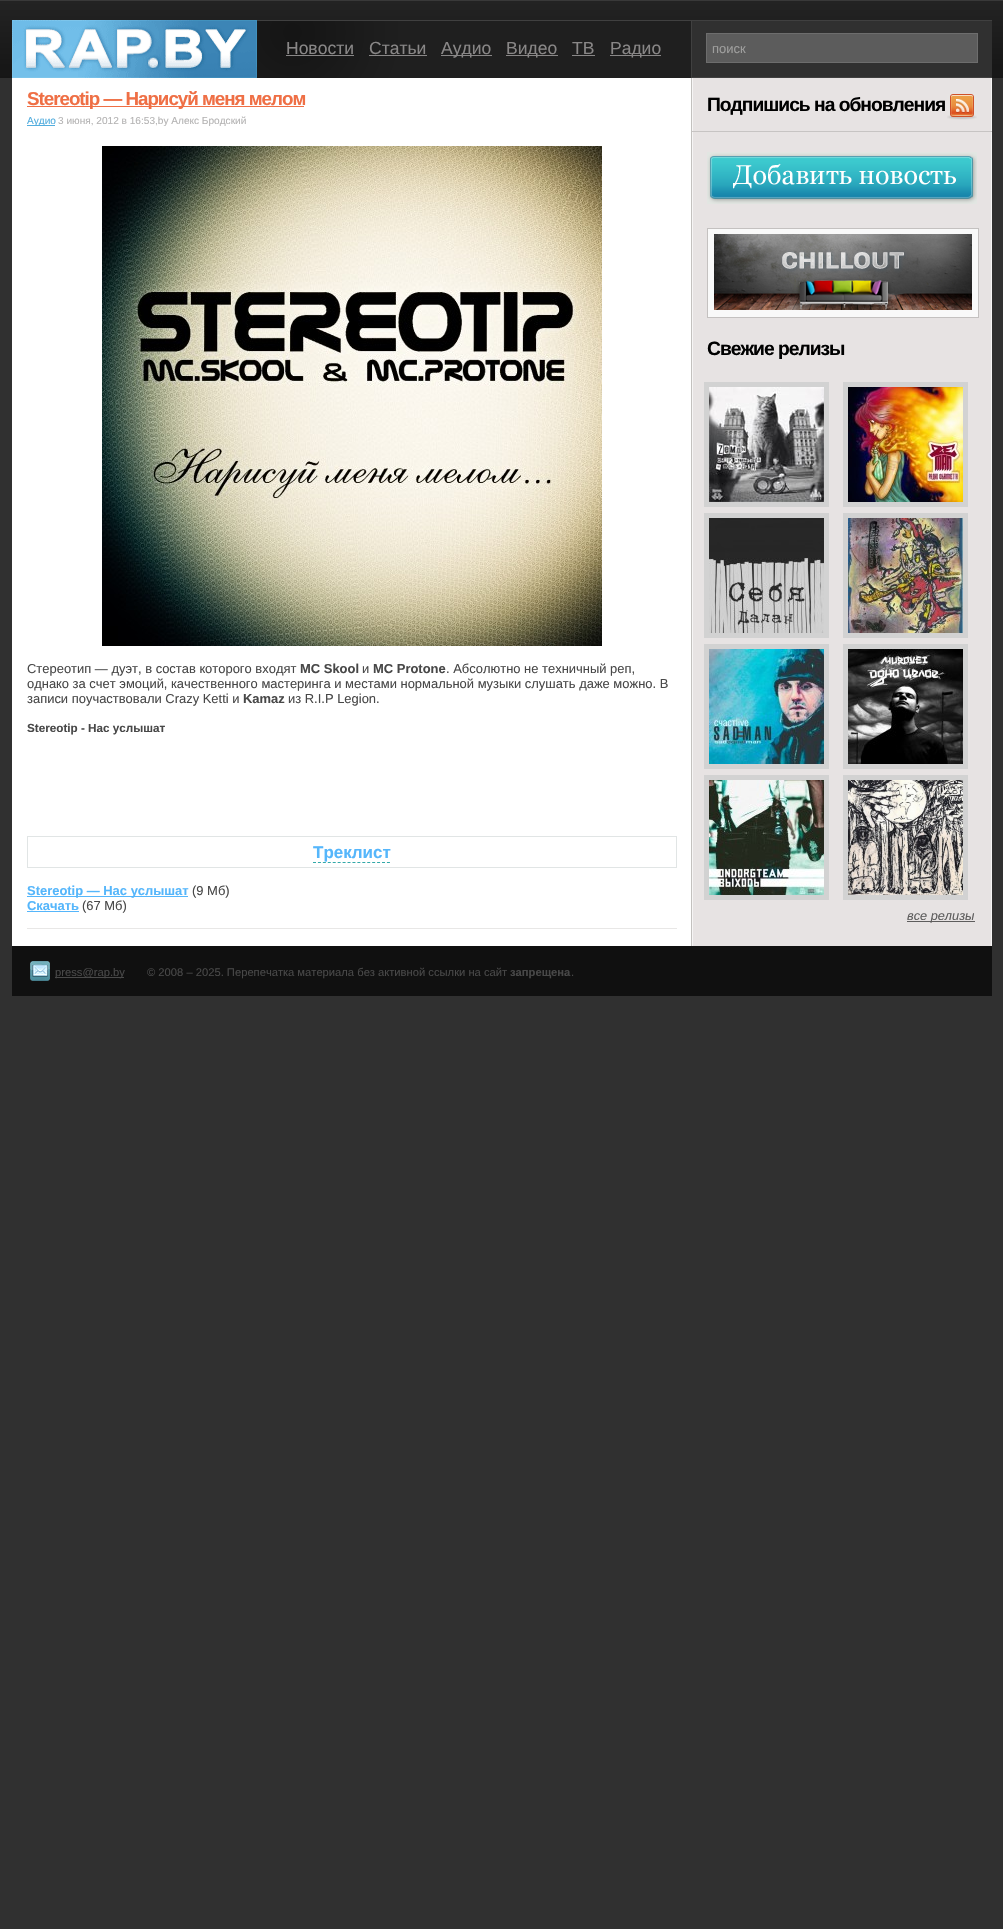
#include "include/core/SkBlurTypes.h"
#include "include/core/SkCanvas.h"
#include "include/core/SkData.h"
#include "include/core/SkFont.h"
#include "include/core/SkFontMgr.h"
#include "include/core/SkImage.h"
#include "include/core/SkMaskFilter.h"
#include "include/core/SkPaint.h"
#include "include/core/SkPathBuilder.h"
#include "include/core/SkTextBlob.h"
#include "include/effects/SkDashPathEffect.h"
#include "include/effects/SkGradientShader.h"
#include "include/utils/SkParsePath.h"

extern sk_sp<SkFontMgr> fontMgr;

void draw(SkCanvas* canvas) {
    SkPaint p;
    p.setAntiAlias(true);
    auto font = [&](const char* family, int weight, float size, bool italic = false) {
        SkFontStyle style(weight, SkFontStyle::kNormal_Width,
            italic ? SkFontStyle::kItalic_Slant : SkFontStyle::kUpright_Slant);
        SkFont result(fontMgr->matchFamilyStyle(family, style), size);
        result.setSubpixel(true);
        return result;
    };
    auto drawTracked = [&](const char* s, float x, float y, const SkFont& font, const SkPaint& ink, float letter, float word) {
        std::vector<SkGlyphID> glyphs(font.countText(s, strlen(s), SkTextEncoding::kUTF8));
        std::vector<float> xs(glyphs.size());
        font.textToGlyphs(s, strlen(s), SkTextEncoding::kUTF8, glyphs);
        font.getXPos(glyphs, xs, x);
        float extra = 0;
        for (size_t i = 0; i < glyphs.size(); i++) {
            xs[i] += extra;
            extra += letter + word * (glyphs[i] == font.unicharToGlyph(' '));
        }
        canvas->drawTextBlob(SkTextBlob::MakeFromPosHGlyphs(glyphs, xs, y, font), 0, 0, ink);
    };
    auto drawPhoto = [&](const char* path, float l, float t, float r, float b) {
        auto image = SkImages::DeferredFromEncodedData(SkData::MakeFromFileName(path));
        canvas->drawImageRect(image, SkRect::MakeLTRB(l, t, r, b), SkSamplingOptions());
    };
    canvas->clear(0xFF303030);
    drawPhoto("media/1.png", 0, 0, 1003, 78);
    drawPhoto("media/2.png", 12, 20, 257, 78);
    drawPhoto("media/3.png", 257, 20, 691, 78);
    auto font1 = font("Liberation Sans", 400, 17.5f);
    p.setColor(0xFF898787);
    canvas->drawString("Новости", 286, 54, font1, p);
    canvas->drawRect(SkRect::MakeLTRB(286, 55, 354, 56), p);
    canvas->drawString("Статьи", 369, 54, font1, p);
    canvas->drawRect(SkRect::MakeLTRB(369, 55, 427, 56), p);
    canvas->drawRect(SkRect::MakeLTRB(441, 55, 492, 56), p);
    canvas->drawString("Аудио", 441, 54, font1, p);
    canvas->drawRect(SkRect::MakeLTRB(506, 55, 558, 56), p);
    canvas->drawString("Видео", 506, 54, font1, p);
    canvas->drawString("ТВ", 572, 54, font1, p);
    canvas->drawRect(SkRect::MakeLTRB(572, 55, 595, 56), p);
    canvas->drawRect(SkRect::MakeLTRB(610, 55, 661, 56), p);
    canvas->drawString("Радио", 610, 54, font1, p);
    {
        const struct { float l, t, r, b; SkColor color; } items[] = {
            {692, 21, 992, 77, 0xFF303030},
            {691, 20, 992, 21, 0xFF404040},
            {691, 77, 992, 78, 0xFF404040},
            {691, 20, 692, 78, 0xFF404040},
        };
        for (auto [l, t, r, b, color] : items) {
            p.setColor(color);
            canvas->drawRect(SkRect::MakeLTRB(l, t, r, b), p);
        }
    }
    p.setColor(0xFF5C5C5C);
    canvas->drawRect(SkRect::MakeLTRB(706.5f, 33.5f, 977.5f, 62.5f), p);
    p.setStyle(SkPaint::kStroke_Style);
    p.setStrokeWidth(1);
    p.setColor(0xFF6D6D6D);
    canvas->drawRect(SkRect::MakeLTRB(706.5f, 33.5f, 977.5f, 62.5f), p);
    auto font2 = font("Liberation Sans", 400, 13);
    p.setStyle(SkPaint::kFill_Style);
    p.setColor(0xFF9E9E9D);
    canvas->drawString("поиск", 712, 53, font2, p);
    p.setColor(0xFFFFFFFF);
    canvas->drawRect(SkRect::MakeLTRB(12, 78, 691, 946), p);
    drawPhoto("media/4.png", 691, 78, 992, 946);
    p.setColor(0xFFE8E7E6);
    canvas->drawRect(SkRect::MakeLTRB(27, 928, 677, 929), p);
    p.setColor(0xFFEF6F45);
    canvas->drawRect(SkRect::MakeLTRB(27, 106, 304, 107), p);
    auto font3 = font("Liberation Sans", 700, 18.75f);
    drawTracked("Stereotip — Нарисуй меня мелом", 27, 105, font3, p, -1, 0);
    p.setColor(0xFF52ADDE);
    canvas->drawRect(SkRect::MakeLTRB(27, 125, 55, 126), p);
    auto font4 = font("Liberation Sans", 400, 10.1f);
    canvas->drawString("Аудио", 27, 124, font4, p);
    p.setColor(0xFFB4B3B3);
    canvas->drawString("3 июня, 2012 в 16:53,by Алекс Бродский", 58, 124, font4, p);
    drawPhoto("media/5.png", 102, 146, 602, 646);
    auto font5 = font("Liberation Sans", 400, 12.95f);
    p.setColor(0xFF484848);
    canvas->drawString("Стереотип — дуэт, в состав которого входят", 27, 673, font5, p);
    auto font6 = font("Liberation Sans", 700, 12.95f);
    canvas->drawString("MC Skool", 300, 673, font6, p);
    canvas->drawString("и", 362, 673, font5, p);
    canvas->drawString("MC Protone", 373, 673, font6, p);
    {
        const struct { const char* s; float x, y; } items[] = {
            {". Абсолютно не техничный реп,", 446, 673},
            {"однако за счет эмоций, качественного мастеринга и местами нормальной музыки слушать даже можно. В", 27, 688},
            {"записи поучаствовали Crazy Ketti и", 27, 703},
        };
        for (auto [s, x, y] : items) {
            canvas->drawString(s, x, y, font5, p);
        }
    }
    canvas->drawString("Kamaz", 243, 703, font6, p);
    canvas->drawString("из R.I.P Legion.", 288, 703, font5, p);
    auto font7 = font("Liberation Sans", 700, 11.7f);
    canvas->drawString("Stereotip - Нас услышат", 27, 732, font7, p);
    p.setStyle(SkPaint::kStroke_Style);
    p.setColor(0xFFE1E5E5);
    canvas->drawRect(SkRect::MakeLTRB(27.5f, 836.5f, 676.5f, 867.5f), p);
    auto font8 = font("Liberation Sans", 700, 17);
    p.setStyle(SkPaint::kFill_Style);
    p.setColor(0xFF55B6FB);
    canvas->drawString("Треклист", 313, 858, font8, p);
    p.setStyle(SkPaint::kStroke_Style);
    p.setColor(0xFF32A9A9);
    p.setPathEffect(SkDashPathEffect::Make({{3, 1.93f}}, 0));
    canvas->drawPath(SkPathBuilder().moveTo(313, 862.5f).lineTo(390, 862.5f).detach(), p);
    p.setPathEffect(nullptr);
    p.setStyle(SkPaint::kFill_Style);
    p.setColor(0xFF55B6FB);
    canvas->drawRect(SkRect::MakeLTRB(27, 896, 188, 897), p);
    canvas->drawString("Stereotip — Нас услышат", 27, 895, font6, p);
    p.setColor(0xFF484848);
    canvas->drawString("(9 Мб)", 192, 895, font5, p);
    p.setColor(0xFF55B6FB);
    canvas->drawString("Скачать", 27, 910, font6, p);
    canvas->drawRect(SkRect::MakeLTRB(27, 911, 79, 912), p);
    p.setColor(0xFF484848);
    canvas->drawString("(67 Мб)", 82, 910, font5, p);
    drawPhoto("media/6.png", 947, 94, 977, 120);
    p.setColor(0xFFC7C4C3);
    canvas->drawRect(SkRect::MakeLTRB(692, 131, 992, 132), p);
    auto font9 = font("Liberation Sans", 700, 19.25f);
    p.setColor(0xFF000000);
    drawTracked("Подпишись на обновления", 707, 111, font9, p, -1, 0);
    drawPhoto("media/7.png", 707, 152, 977, 204);
    p.setColor(0xFFF9F9F9);
    canvas->drawRect(SkRect::MakeLTRB(707.5f, 228.5f, 978.5f, 317.5f), p);
    p.setStyle(SkPaint::kStroke_Style);
    p.setColor(0xFFC4C1C0);
    canvas->drawRect(SkRect::MakeLTRB(707.5f, 228.5f, 978.5f, 317.5f), p);
    drawPhoto("media/8.png", 714, 234, 972, 310);
    p.setStyle(SkPaint::kFill_Style);
    p.setColor(0xFF000000);
    drawTracked("Свежие релизы", 707, 355, font9, p, -1, 0);
    p.setColor(0xFFD2D2D2);
    canvas->drawRect(SkRect::MakeLTRB(704, 382, 829, 507), p);
    drawPhoto("media/9.png", 709, 387, 824, 502);
    canvas->drawRect(SkRect::MakeLTRB(843, 382, 968, 507), p);
    drawPhoto("media/10.png", 848, 387, 963, 502);
    canvas->drawRect(SkRect::MakeLTRB(704, 513, 829, 638), p);
    drawPhoto("media/11.png", 709, 518, 824, 633);
    canvas->drawRect(SkRect::MakeLTRB(843, 513, 968, 638), p);
    drawPhoto("media/12.png", 848, 518, 963, 633);
    canvas->drawRect(SkRect::MakeLTRB(704, 644, 829, 769), p);
    drawPhoto("media/13.png", 709, 649, 824, 764);
    canvas->drawRect(SkRect::MakeLTRB(843, 644, 968, 769), p);
    drawPhoto("media/14.png", 848, 649, 963, 764);
    canvas->drawRect(SkRect::MakeLTRB(704, 775, 829, 900), p);
    drawPhoto("media/15.png", 709, 780, 824, 895);
    canvas->drawRect(SkRect::MakeLTRB(843, 775, 968, 900), p);
    drawPhoto("media/16.png", 848, 780, 963, 895);
    p.setColor(0xFF5E5D5D);
    canvas->drawRect(SkRect::MakeLTRB(907, 921, 975, 922), p);
    auto font10 = font("Liberation Sans", 400, 12.75f, true);
    canvas->drawString("все релизы", 907, 920, font10, p);
    p.setColor(0xFF101010);
    canvas->drawRect(SkRect::MakeLTRB(12, 946, 992, 996), p);
    drawPhoto("media/17.png", 30, 961, 50, 981);
    p.setColor(0xFF4A4A4A);
    canvas->drawRect(SkRect::MakeLTRB(55, 977, 124, 978), p);
    auto font11 = font("Liberation Sans", 400, 11.2f);
    p.setColor(0xFF484848);
    canvas->drawString("press@rap.by", 55, 976, font11, p);
    canvas->drawString("© 2008 – 2025. Перепечатка материала без активной ссылки на сайт", 147, 976, font11, p);
    auto font12 = font("Liberation Sans", 700, 11.2f);
    canvas->drawString("запрещена", 510, 976, font12, p);
    canvas->drawString(".", 571, 976, font11, p);
}
